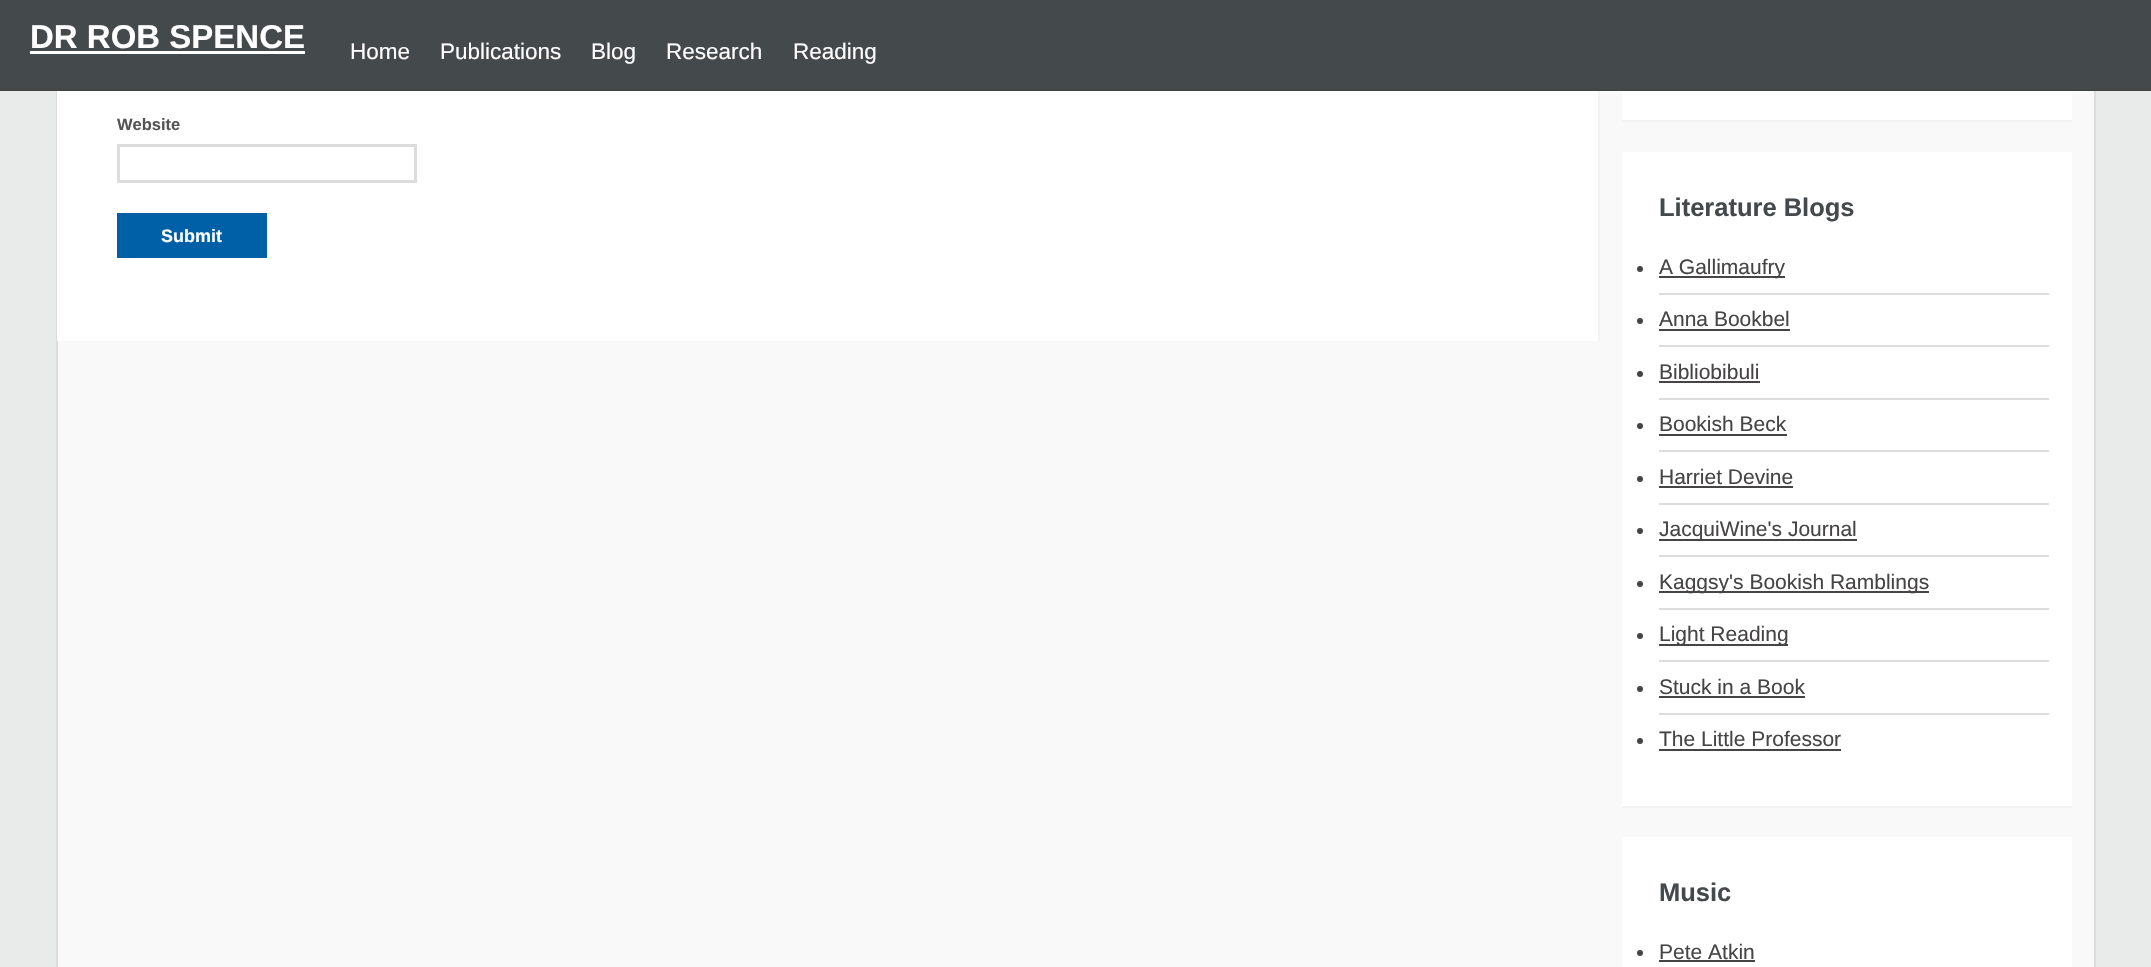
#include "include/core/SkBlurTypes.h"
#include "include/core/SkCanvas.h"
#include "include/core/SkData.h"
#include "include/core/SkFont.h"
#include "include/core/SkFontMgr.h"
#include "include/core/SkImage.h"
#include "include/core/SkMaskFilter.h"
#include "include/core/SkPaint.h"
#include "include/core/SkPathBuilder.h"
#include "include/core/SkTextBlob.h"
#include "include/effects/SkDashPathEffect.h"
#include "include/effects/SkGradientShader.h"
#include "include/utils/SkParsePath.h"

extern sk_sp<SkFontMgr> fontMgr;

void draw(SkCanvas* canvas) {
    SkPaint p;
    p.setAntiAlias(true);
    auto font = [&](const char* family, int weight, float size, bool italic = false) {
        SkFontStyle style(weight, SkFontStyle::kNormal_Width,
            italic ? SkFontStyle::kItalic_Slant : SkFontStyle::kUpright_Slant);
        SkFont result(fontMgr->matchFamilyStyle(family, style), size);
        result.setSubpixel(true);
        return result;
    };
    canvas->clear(0xFFE9EAEA);
    p.setColor(0xFFF9F9F9);
    canvas->drawRect(SkRect::MakeLTRB(58, 91, 2094, 967), p);
    p.setStyle(SkPaint::kStroke_Style);
    p.setStrokeWidth(2);
    p.setColor(0xFFDDDDDD);
    canvas->drawRect(SkRect::MakeLTRB(57, -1, 2095, 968), p);
    p.setStyle(SkPaint::kFill_Style);
    p.setColor(0xFF44494B);
    canvas->drawRect(SkRect::MakeLTRB(0, 0, 2151, 89), p);
    p.setColor(0xFF444444);
    canvas->drawRect(SkRect::MakeLTRB(0, 89, 2151, 91), p);
    auto font1 = font("Liberation Sans", 700, 33);
    p.setColor(0xFFFFFFFF);
    canvas->drawString("DR ROB SPENCE", 30, 48, font1, p);
    canvas->drawRect(SkRect::MakeLTRB(30, 51, 305, 54), p);
    auto font2 = font("Liberation Sans", 400, 22.5f);
    {
        const struct { const char* s; float x, y; } items[] = {
            {"Home", 350, 59},
            {"Publications", 440, 59},
            {"Blog", 591, 59},
            {"Research", 666, 59},
            {"Reading", 793, 59},
        };
        for (auto [s, x, y] : items) {
            canvas->drawString(s, x, y, font2, p);
        }
    }
    canvas->drawRect(SkRect::MakeLTRB(57, 91, 1598, 341), p);
    p.setColor(0xFFF3F3F3);
    canvas->drawRect(SkRect::MakeLTRB(1598, 91, 1600, 341), p);
    auto font3 = font("Liberation Sans", 700, 16.5f);
    p.setColor(0xFF555555);
    canvas->drawString("Website", 117, 130, font3, p);
    p.setStyle(SkPaint::kStroke_Style);
    p.setStrokeWidth(3);
    p.setColor(0xFFDDDDDD);
    canvas->drawRect(SkRect::MakeLTRB(118.5f, 145.5f, 415.5f, 181.5f), p);
    p.setStyle(SkPaint::kFill_Style);
    p.setColor(0xFF0060A7);
    canvas->drawRect(SkRect::MakeLTRB(117, 213, 267, 258), p);
    auto font4 = font("Liberation Sans", 700, 18);
    p.setColor(0xFFFFFFFF);
    canvas->drawString("Submit", 161, 242, font4, p);
    {
        const struct { float l, t, r, b; SkColor color; } items[] = {
            {1622, 91, 2072, 120, 0xFFFFFFFF},
            {1622, 120, 2072, 122, 0xFFF3F3F3},
            {1622, 152, 2072, 806, 0xFFFFFFFF},
            {1622, 806, 2072, 808, 0xFFF3F3F3},
        };
        for (auto [l, t, r, b, color] : items) {
            p.setColor(color);
            canvas->drawRect(SkRect::MakeLTRB(l, t, r, b), p);
        }
    }
    auto font5 = font("Liberation Sans", 700, 25.5f);
    p.setColor(0xFF44494B);
    canvas->drawString("Literature Blogs", 1659, 216, font5, p);
    p.setColor(0xFFDDDDDD);
    canvas->drawRect(SkRect::MakeLTRB(1659, 293, 2049, 295), p);
    p.setColor(0xFF444444);
    canvas->drawCircle(1640, 269, 3, p);
    p.setColor(0xFF464444);
    canvas->drawRect(SkRect::MakeLTRB(1659, 276, 1785, 278), p);
    auto font6 = font("Liberation Sans", 400, 21);
    canvas->drawString("A Gallimaufry", 1659, 274, font6, p);
    p.setColor(0xFFDDDDDD);
    canvas->drawRect(SkRect::MakeLTRB(1659, 345, 2049, 347), p);
    p.setColor(0xFF444444);
    canvas->drawCircle(1640, 321, 3, p);
    p.setColor(0xFF464444);
    canvas->drawString("Anna Bookbel", 1659, 326, font6, p);
    canvas->drawRect(SkRect::MakeLTRB(1659, 329, 1790, 331), p);
    p.setColor(0xFFDDDDDD);
    canvas->drawRect(SkRect::MakeLTRB(1659, 398, 2049, 400), p);
    p.setColor(0xFF444444);
    canvas->drawCircle(1640, 374, 3, p);
    p.setColor(0xFF464444);
    canvas->drawString("Bibliobibuli", 1659, 379, font6, p);
    canvas->drawRect(SkRect::MakeLTRB(1659, 381, 1760, 383), p);
    p.setColor(0xFFDDDDDD);
    canvas->drawRect(SkRect::MakeLTRB(1659, 450, 2049, 452), p);
    p.setColor(0xFF444444);
    canvas->drawCircle(1640, 426, 3, p);
    p.setColor(0xFF464444);
    canvas->drawString("Bookish Beck", 1659, 431, font6, p);
    canvas->drawRect(SkRect::MakeLTRB(1659, 434, 1787, 436), p);
    p.setColor(0xFFDDDDDD);
    canvas->drawRect(SkRect::MakeLTRB(1659, 503, 2049, 505), p);
    p.setColor(0xFF444444);
    canvas->drawCircle(1640, 479, 3, p);
    p.setColor(0xFF464444);
    canvas->drawString("Harriet Devine", 1659, 484, font6, p);
    canvas->drawRect(SkRect::MakeLTRB(1659, 486, 1793, 488), p);
    p.setColor(0xFFDDDDDD);
    canvas->drawRect(SkRect::MakeLTRB(1659, 555, 2049, 557), p);
    p.setColor(0xFF444444);
    canvas->drawCircle(1640, 531, 3, p);
    p.setColor(0xFF464444);
    canvas->drawRect(SkRect::MakeLTRB(1659, 539, 1857, 541), p);
    canvas->drawString("JacquiWine's Journal", 1659, 536, font6, p);
    p.setColor(0xFFDDDDDD);
    canvas->drawRect(SkRect::MakeLTRB(1659, 608, 2049, 610), p);
    p.setColor(0xFF444444);
    canvas->drawCircle(1640, 584, 3, p);
    p.setColor(0xFF464444);
    canvas->drawRect(SkRect::MakeLTRB(1659, 591, 1929, 593), p);
    canvas->drawString("Kaggsy's Bookish Ramblings", 1659, 589, font6, p);
    p.setColor(0xFFDDDDDD);
    canvas->drawRect(SkRect::MakeLTRB(1659, 660, 2049, 662), p);
    p.setColor(0xFF444444);
    canvas->drawCircle(1640, 636, 3, p);
    p.setColor(0xFF464444);
    canvas->drawRect(SkRect::MakeLTRB(1659, 644, 1788, 646), p);
    canvas->drawString("Light Reading", 1659, 641, font6, p);
    p.setColor(0xFFDDDDDD);
    canvas->drawRect(SkRect::MakeLTRB(1659, 713, 2049, 715), p);
    p.setColor(0xFF444444);
    canvas->drawCircle(1640, 689, 3, p);
    p.setColor(0xFF464444);
    canvas->drawString("Stuck in a Book", 1659, 694, font6, p);
    canvas->drawRect(SkRect::MakeLTRB(1659, 696, 1805, 698), p);
    p.setColor(0xFF444444);
    canvas->drawCircle(1640, 741, 3, p);
    p.setColor(0xFF464444);
    canvas->drawString("The Little Professor", 1659, 746, font6, p);
    canvas->drawRect(SkRect::MakeLTRB(1659, 749, 1841, 751), p);
    p.setColor(0xFFFFFFFF);
    canvas->drawRect(SkRect::MakeLTRB(1622, 837, 2072, 967), p);
    p.setColor(0xFF44494B);
    canvas->drawString("Music", 1659, 901, font5, p);
    p.setColor(0xFF444444);
    canvas->drawCircle(1640, 953, 3, p);
    p.setColor(0xFF464444);
    canvas->drawString("Pete Atkin", 1659, 959, font6, p);
    canvas->drawRect(SkRect::MakeLTRB(1659, 960, 1755, 962), p);
}
